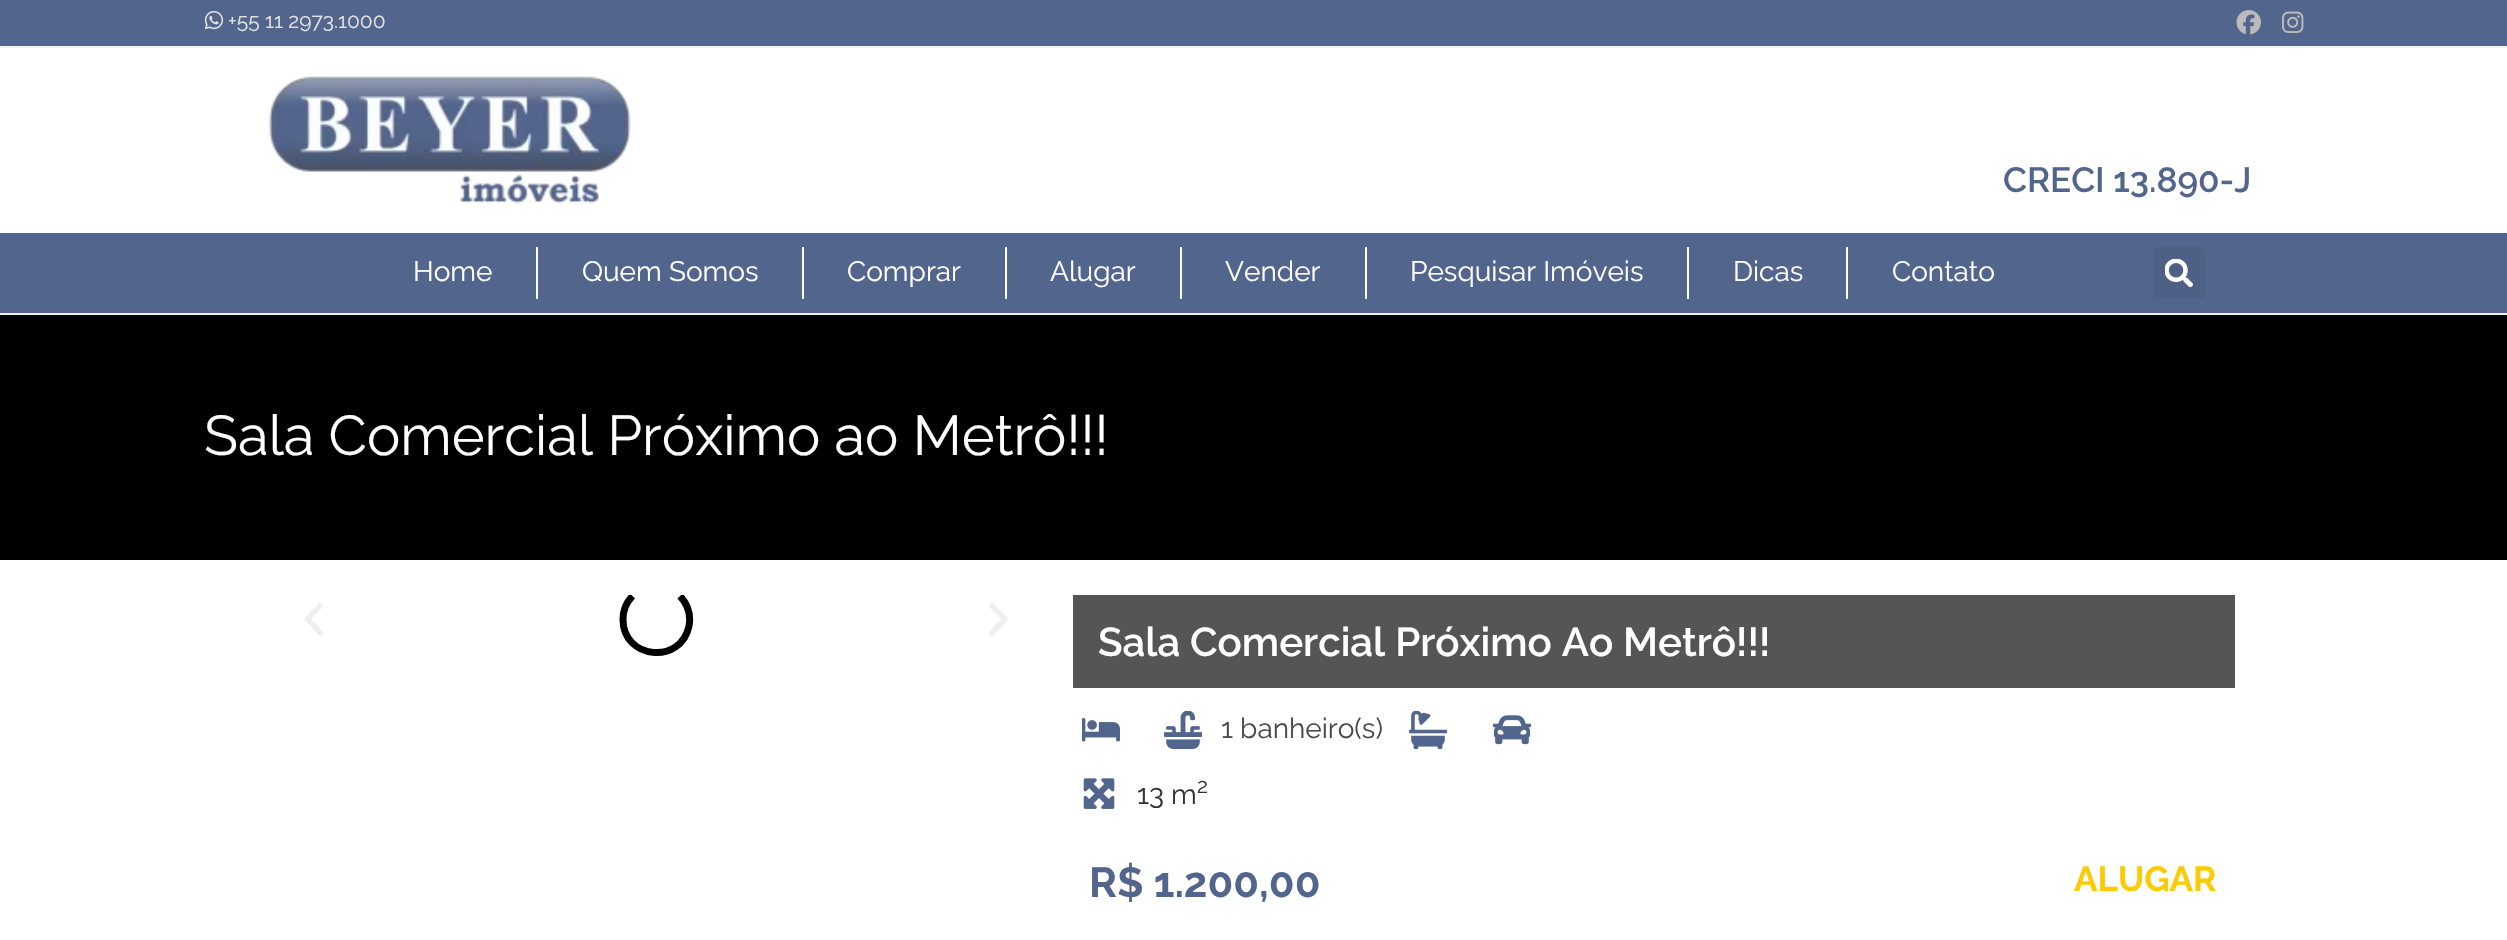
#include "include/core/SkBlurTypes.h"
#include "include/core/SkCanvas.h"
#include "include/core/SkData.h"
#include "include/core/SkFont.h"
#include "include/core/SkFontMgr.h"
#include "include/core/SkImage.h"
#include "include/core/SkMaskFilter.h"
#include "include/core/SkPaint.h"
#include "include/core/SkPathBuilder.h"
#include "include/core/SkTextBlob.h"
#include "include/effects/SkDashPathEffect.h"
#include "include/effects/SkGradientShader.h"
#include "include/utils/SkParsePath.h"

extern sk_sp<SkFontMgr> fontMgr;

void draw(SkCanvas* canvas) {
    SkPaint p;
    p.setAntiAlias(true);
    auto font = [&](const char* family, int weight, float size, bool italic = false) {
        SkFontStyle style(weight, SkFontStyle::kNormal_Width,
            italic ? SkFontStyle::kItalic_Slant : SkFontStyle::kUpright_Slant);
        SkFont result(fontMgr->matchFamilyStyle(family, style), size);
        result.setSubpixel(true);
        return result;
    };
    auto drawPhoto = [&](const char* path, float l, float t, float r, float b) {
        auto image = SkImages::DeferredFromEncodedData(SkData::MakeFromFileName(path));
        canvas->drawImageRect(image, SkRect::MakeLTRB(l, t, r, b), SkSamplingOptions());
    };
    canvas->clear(0xFFFFFFFF);
    p.setColor(0xFF52658C);
    canvas->drawRect(SkRect::MakeLTRB(0, 0, 2507, 46), p);
    p.setColor(0xFFF1F1F1);
    canvas->drawRect(SkRect::MakeLTRB(0, 46, 2507, 48), p);
    drawPhoto("media/1.png", 204, 10, 224, 30);
    auto font1 = font("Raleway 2", 100, 21);
    p.setColor(0xFFE2E2E2);
    canvas->drawString("+55 11 2973.1000", 228, 28, font1, p);
    drawPhoto("media/2.png", 2236, 10, 2261, 35);
    drawPhoto("media/3.png", 2282, 11, 2304, 33);
    p.setColor(0xFFF1F1F1);
    canvas->drawRect(SkRect::MakeLTRB(0, 313, 2507, 315), p);
    drawPhoto("media/4.png", 269, 76, 631, 204);
    auto font2 = font("Raleway", 100, 35);
    p.setColor(0xFF52658C);
    canvas->drawString("CRECI 13.890-J", 2003, 192, font2, p);
    canvas->drawRect(SkRect::MakeLTRB(0, 233, 2507, 313), p);
    auto font3 = font("Raleway 2", 100, 28);
    p.setColor(0xFFFFFFFF);
    canvas->drawString("Home", 413, 281, font3, p);
    canvas->drawRect(SkRect::MakeLTRB(536, 247, 538, 299), p);
    canvas->drawString("Quem Somos", 582, 281, font3, p);
    canvas->drawRect(SkRect::MakeLTRB(802, 247, 804, 299), p);
    canvas->drawString("Comprar", 847, 281, font3, p);
    canvas->drawRect(SkRect::MakeLTRB(1005, 247, 1007, 299), p);
    canvas->drawString("Alugar", 1050, 281, font3, p);
    canvas->drawRect(SkRect::MakeLTRB(1180, 247, 1182, 299), p);
    canvas->drawString("Vender", 1225, 281, font3, p);
    canvas->drawRect(SkRect::MakeLTRB(1365, 247, 1367, 299), p);
    canvas->drawString("Pesquisar Imóveis", 1410, 281, font3, p);
    canvas->drawRect(SkRect::MakeLTRB(1687, 247, 1689, 299), p);
    canvas->drawString("Dicas", 1733, 281, font3, p);
    canvas->drawRect(SkRect::MakeLTRB(1846, 247, 1848, 299), p);
    canvas->drawString("Contato", 1892, 281, font3, p);
    p.setColor(0xFF4E6085);
    canvas->drawRoundRect(SkRect::MakeLTRB(2153, 247, 2205, 299), 5, 5, p);
    drawPhoto("media/5.png", 2165, 259, 2193, 287);
    p.setColor(0xFF000000);
    canvas->drawRect(SkRect::MakeLTRB(0, 315, 2507, 560), p);
    auto font4 = font("Raleway 2", 100, 56);
    p.setColor(0xFFFFFFFF);
    canvas->drawString("Sala Comercial Próximo ao Metrô!!!", 204, 455, font4, p);
    drawPhoto("media/6.png", 305, 603, 324, 636);
    canvas->save();
    canvas->clipRect(SkRect::MakeLTRB(275, 595, 1038, 697));
    p.setStyle(SkPaint::kStroke_Style);
    p.setStrokeWidth(7);
    p.setColor(0xFF000000);
    canvas->drawPath(SkPathBuilder().moveTo(680, 596).cubicTo(687.5f, 604, 691, 615, 689, 626).cubicTo(681, 665, 623, 659.5f, 623, 619.5f).cubicTo(623, 610.5f, 626.5f, 602, 632.5f, 596).detach(), p);
    canvas->restore();
    drawPhoto("media/7.png", 989, 603, 1008, 636);
    p.setStyle(SkPaint::kFill_Style);
    p.setColor(0xFF555555);
    canvas->drawRect(SkRect::MakeLTRB(1073, 595, 2235, 688), p);
    auto font5 = font("Raleway", 100, 40.25f);
    p.setColor(0xFFFFFFFF);
    canvas->drawString("Sala Comercial Próximo Ao Metrô!!!", 1098, 656, font5, p);
    drawPhoto("media/8.png", 1082, 718, 1120, 742);
    drawPhoto("media/9.png", 1164, 711, 1202, 749);
    p.setColor(0xFF4A4A4A);
    canvas->drawString("1 banheiro(s)", 1221, 738, font3, p);
    drawPhoto("media/10.png", 1409, 711, 1447, 749);
    drawPhoto("media/11.png", 1493, 715, 1531, 745);
    drawPhoto("media/12.png", 1083, 778, 1115, 809);
    p.setColor(0xFF333333);
    canvas->drawString("13 m", 1137, 804, font3, p);
    canvas->drawString("2", 1197, 793, font1, p);
    auto font6 = font("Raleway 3", 100, 42);
    p.setColor(0xFF52658C);
    canvas->drawString("R$ 1.200,00", 1089, 897, font6, p);
    auto font7 = font("Raleway 3", 100, 35);
    p.setColor(0xFFFDCB06);
    canvas->drawString("ALUGAR", 2074, 891, font7, p);
}
